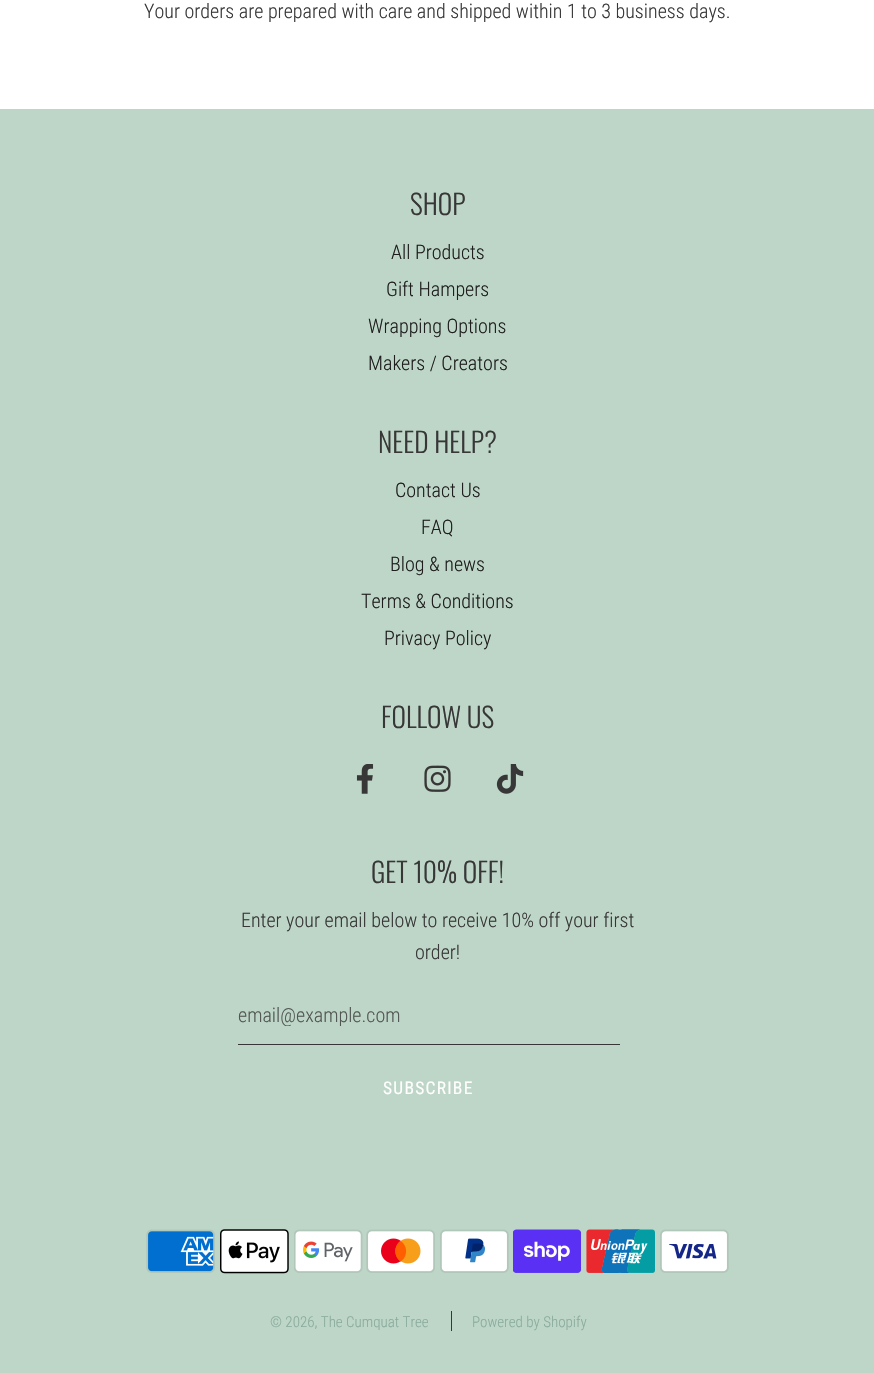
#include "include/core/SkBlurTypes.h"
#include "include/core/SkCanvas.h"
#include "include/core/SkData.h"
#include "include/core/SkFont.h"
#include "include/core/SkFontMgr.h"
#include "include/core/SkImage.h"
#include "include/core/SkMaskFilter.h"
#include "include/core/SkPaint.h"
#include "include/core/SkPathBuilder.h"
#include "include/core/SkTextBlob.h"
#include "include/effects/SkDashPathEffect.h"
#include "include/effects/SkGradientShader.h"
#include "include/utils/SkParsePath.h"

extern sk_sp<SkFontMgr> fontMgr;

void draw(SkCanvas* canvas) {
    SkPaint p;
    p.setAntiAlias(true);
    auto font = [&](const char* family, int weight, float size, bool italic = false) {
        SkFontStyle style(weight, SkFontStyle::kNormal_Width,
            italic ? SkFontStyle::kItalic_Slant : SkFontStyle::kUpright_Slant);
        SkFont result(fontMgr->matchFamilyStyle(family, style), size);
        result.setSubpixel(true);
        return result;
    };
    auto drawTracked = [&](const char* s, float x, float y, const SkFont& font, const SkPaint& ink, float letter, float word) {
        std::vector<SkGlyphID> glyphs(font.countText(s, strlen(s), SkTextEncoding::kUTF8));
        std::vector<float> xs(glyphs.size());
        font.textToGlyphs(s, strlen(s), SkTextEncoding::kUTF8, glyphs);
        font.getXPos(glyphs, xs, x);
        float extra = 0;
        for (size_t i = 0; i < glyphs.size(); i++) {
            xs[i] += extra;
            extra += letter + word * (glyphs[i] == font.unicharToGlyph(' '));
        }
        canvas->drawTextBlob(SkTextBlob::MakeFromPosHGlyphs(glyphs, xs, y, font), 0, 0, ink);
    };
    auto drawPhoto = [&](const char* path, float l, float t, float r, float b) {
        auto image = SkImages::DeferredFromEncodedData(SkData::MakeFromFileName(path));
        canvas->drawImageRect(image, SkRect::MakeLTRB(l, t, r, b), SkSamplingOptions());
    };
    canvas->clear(0xFFFFFFFF);
    auto font1 = font("Roboto Condensed", 300, 20);
    p.setColor(0xFF373737);
    canvas->drawString("Your orders are prepared with care and shipped within 1 to 3 business days.", 144, 18, font1, p);
    p.setColor(0xFFBED6C7);
    canvas->drawRect(SkRect::MakeLTRB(0, 109, 874, 1373), p);
    auto font2 = font("Oswald", 300, 27.5f);
    p.setColor(0xFF373737);
    canvas->drawString("SHOP", 410, 215, font2, p);
    p.setColor(0xFF1E1E1E);
    {
        const struct { const char* s; float x, y; } items[] = {
            {"All Products", 391, 259},
            {"Gift Hampers", 386, 296},
            {"Wrapping Options", 368, 333},
            {"Makers / Creators", 368, 370},
        };
        for (auto [s, x, y] : items) {
            canvas->drawString(s, x, y, font1, p);
        }
    }
    p.setColor(0xFF373737);
    canvas->drawString("NEED HELP?", 378, 453, font2, p);
    p.setColor(0xFF1E1E1E);
    {
        const struct { const char* s; float x, y; } items[] = {
            {"Contact Us", 395, 497},
            {"FAQ", 421, 534},
            {"Blog & news", 390, 571},
            {"Terms & Conditions", 361, 608},
            {"Privacy Policy", 384, 645},
        };
        for (auto [s, x, y] : items) {
            canvas->drawString(s, x, y, font1, p);
        }
    }
    p.setColor(0xFF373737);
    canvas->drawString("FOLLOW US", 381, 728, font2, p);
    drawPhoto("media/1.png", 356, 764, 374, 794);
    drawPhoto("media/2.png", 424, 765, 451, 792);
    drawPhoto("media/3.png", 496, 764, 524, 794);
    canvas->drawString("GET 10% OFF!", 371, 883, font2, p);
    canvas->drawString("Enter your email below to receive 10% off your first", 241, 927, font1, p);
    canvas->drawString("order!", 415, 959, font1, p);
    canvas->drawRect(SkRect::MakeLTRB(238, 1044, 620, 1045), p);
    canvas->save();
    canvas->clipRect(SkRect::MakeLTRB(238, 1003, 608, 1026));
    p.setColor(0xFF525754);
    canvas->drawString("email@example.com", 238, 1022, font1, p);
    canvas->restore();
    auto font3 = font("Roboto Condensed", 400, 17.5f);
    p.setColor(0xFFFFFFFF);
    drawTracked("SUBSCRIBE", 383, 1094, font3, p, 1.25f, 0);
    drawPhoto("media/4.png", 146, 1229, 215, 1273);
    drawPhoto("media/5.png", 220, 1229, 289, 1274);
    drawPhoto("media/6.png", 294, 1229, 363, 1273);
    drawPhoto("media/7.png", 366, 1229, 435, 1273);
    drawPhoto("media/8.png", 440, 1229, 509, 1273);
    drawPhoto("media/9.png", 513, 1229, 581, 1273);
    drawPhoto("media/10.png", 586, 1229, 655, 1273);
    drawPhoto("media/11.png", 660, 1229, 729, 1273);
    auto font4 = font("Roboto Condensed", 300, 15);
    p.setColor(0xFF89AB9D);
    canvas->drawString("© 2026, The Cumquat Tree", 270, 1327, font4, p);
    p.setColor(0xFF373737);
    canvas->drawRect(SkRect::MakeLTRB(451, 1311, 452, 1331), p);
    p.setColor(0xFF89AB9D);
    canvas->drawString("Powered by Shopify", 472, 1327, font4, p);
}
